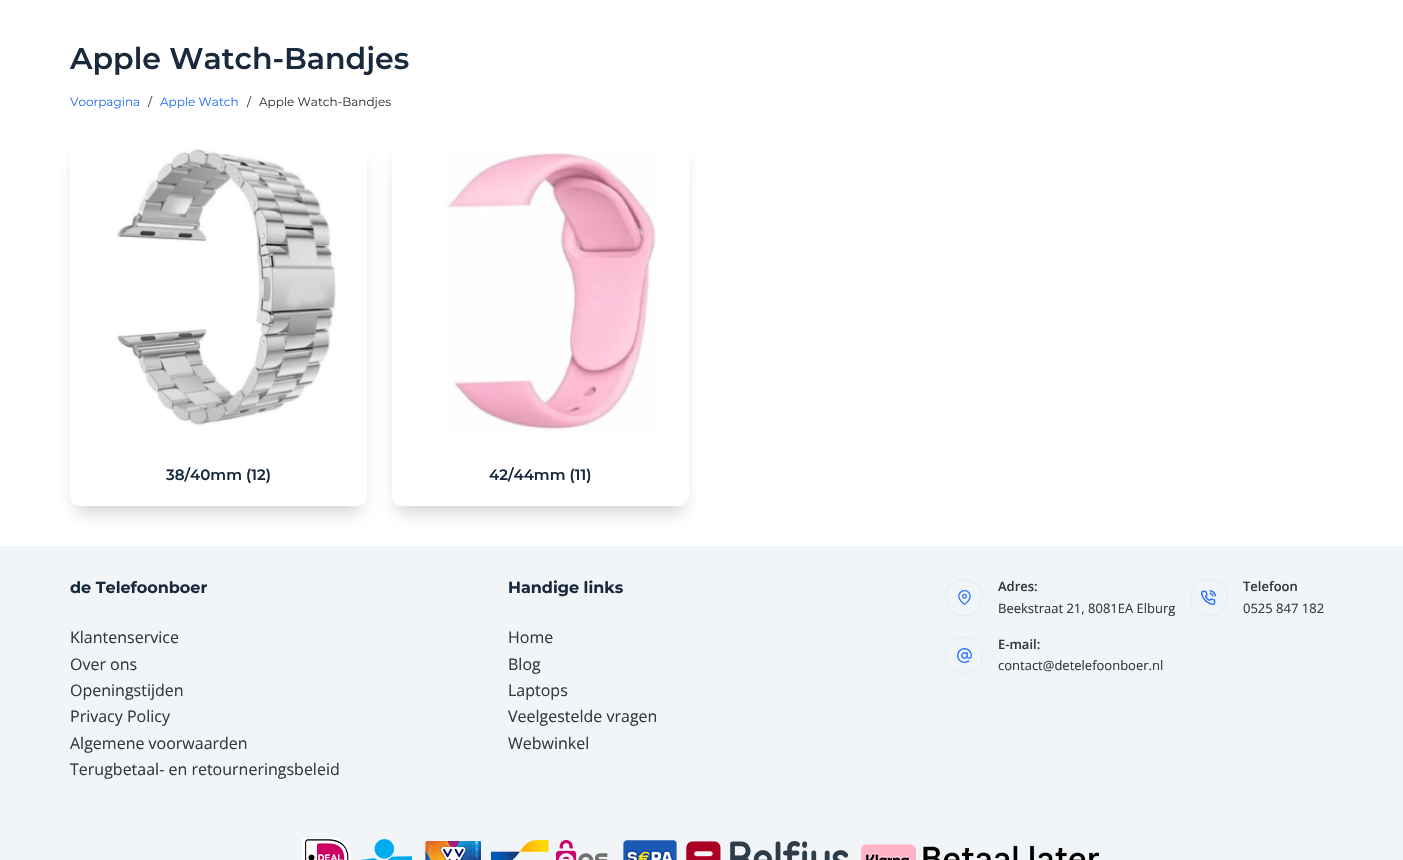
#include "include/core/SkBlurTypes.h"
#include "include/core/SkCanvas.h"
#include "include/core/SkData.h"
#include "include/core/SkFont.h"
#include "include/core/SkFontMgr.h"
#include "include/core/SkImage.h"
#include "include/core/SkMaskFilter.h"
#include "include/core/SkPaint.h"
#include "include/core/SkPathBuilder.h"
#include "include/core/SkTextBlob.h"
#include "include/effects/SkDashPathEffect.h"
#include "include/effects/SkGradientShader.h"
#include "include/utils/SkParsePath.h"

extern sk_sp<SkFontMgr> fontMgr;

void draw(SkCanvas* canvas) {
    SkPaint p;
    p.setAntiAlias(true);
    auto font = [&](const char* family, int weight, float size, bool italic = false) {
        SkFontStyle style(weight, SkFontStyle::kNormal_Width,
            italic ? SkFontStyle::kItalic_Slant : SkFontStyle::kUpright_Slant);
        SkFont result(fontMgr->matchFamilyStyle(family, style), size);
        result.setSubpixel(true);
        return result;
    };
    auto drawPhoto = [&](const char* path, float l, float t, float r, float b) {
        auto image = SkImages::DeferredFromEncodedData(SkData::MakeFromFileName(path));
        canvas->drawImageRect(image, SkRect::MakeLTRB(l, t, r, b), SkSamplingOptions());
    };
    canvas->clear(0xFFFFFFFF);
    auto font1 = font("Montserrat", 600, 30);
    p.setColor(0xFF192A3D);
    canvas->drawString("Apple Watch-Bandjes", 70, 69, font1, p);
    auto font2 = font("Montserrat", 400, 12);
    p.setColor(0xFF2872FA);
    canvas->drawString("Voorpagina", 70, 106, font2, p);
    p.setColor(0xFF35383C);
    canvas->drawString("/", 148, 106, font2, p);
    p.setColor(0xFF2872FA);
    canvas->drawString("Apple Watch", 160, 106, font2, p);
    p.setColor(0xFF35383C);
    canvas->drawString("/", 247, 106, font2, p);
    canvas->drawString("Apple Watch-Bandjes", 259, 106, font2, p);
    p.setColor(0x30000714);
    p.setMaskFilter(SkMaskFilter::MakeBlur(kNormal_SkBlurStyle, 9));
    canvas->drawRoundRect(SkRect::MakeLTRB(76, 160, 361, 512), 4, 4, p);
    p.setMaskFilter(nullptr);
    p.setColor(0xFFFFFFFF);
    canvas->drawRoundRect(SkRect::MakeLTRB(70, 142, 367, 506), 10, 10, p);
    drawPhoto("media/1.png", 116, 148, 336, 426);
    auto font3 = font("Montserrat", 600, 15);
    p.setColor(0xFF192A3D);
    canvas->drawString("38/40mm (12)", 166, 480, font3, p);
    p.setColor(0x30000714);
    p.setMaskFilter(SkMaskFilter::MakeBlur(kNormal_SkBlurStyle, 9));
    canvas->drawRoundRect(SkRect::MakeLTRB(398, 160, 683, 512), 4, 4, p);
    p.setMaskFilter(nullptr);
    p.setColor(0xFFFFFFFF);
    canvas->drawRoundRect(SkRect::MakeLTRB(392, 142, 689, 506), 10, 10, p);
    drawPhoto("media/2.png", 445, 150, 656, 431);
    p.setColor(0xFF192A3D);
    canvas->drawString("42/44mm (11)", 489, 480, font3, p);
    p.setColor(0xFFF2F5F7);
    canvas->drawRect(SkRect::MakeLTRB(0, 546, 1403, 860), p);
    auto font4 = font("Montserrat", 700, 16);
    p.setColor(0xFF192A3D);
    canvas->drawString("de Telefoonboer", 70, 593, font4, p);
    auto font5 = font("Open Sans", 400, 16);
    p.setColor(0xFF35383C);
    {
        const struct { const char* s; float x, y; } items[] = {
            {"Klantenservice", 70, 643},
            {"Over ons", 70, 670},
            {"Openingstijden", 70, 696},
            {"Privacy Policy", 70, 722},
            {"Algemene voorwaarden", 70, 749},
            {"Terugbetaal- en retourneringsbeleid", 70, 775},
        };
        for (auto [s, x, y] : items) {
            canvas->drawString(s, x, y, font5, p);
        }
    }
    p.setColor(0xFF192A3D);
    canvas->drawString("Handige links", 508, 593, font4, p);
    p.setColor(0xFF35383C);
    {
        const struct { const char* s; float x, y; } items[] = {
            {"Home", 508, 643},
            {"Blog", 508, 670},
            {"Laptops", 508, 696},
            {"Veelgestelde vragen", 508, 722},
            {"Webwinkel", 508, 749},
        };
        for (auto [s, x, y] : items) {
            canvas->drawString(s, x, y, font5, p);
        }
    }
    p.setStyle(SkPaint::kStroke_Style);
    p.setStrokeWidth(1);
    p.setColor(0xFFE6EAEE);
    canvas->drawRoundRect(SkRect::MakeLTRB(945.5f, 579.5f, 982.5f, 615.5f), 18, 18, p);
    drawPhoto("media/3.png", 958, 590, 971, 605);
    auto font6 = font("Open Sans", 600, 13);
    p.setStyle(SkPaint::kFill_Style);
    p.setColor(0xFF35383C);
    canvas->drawString("Adres:", 998, 591, font6, p);
    auto font7 = font("Open Sans", 400, 13);
    canvas->drawString("Beekstraat 21, 8081EA Elburg", 998, 613, font7, p);
    p.setStyle(SkPaint::kStroke_Style);
    p.setColor(0xFFE6EAEE);
    canvas->drawRoundRect(SkRect::MakeLTRB(1190.5f, 579.5f, 1227.5f, 615.5f), 18, 18, p);
    drawPhoto("media/4.png", 1201, 590, 1216, 605);
    p.setStyle(SkPaint::kFill_Style);
    p.setColor(0xFF35383C);
    canvas->drawString("Telefoon", 1243, 591, font6, p);
    canvas->drawString("0525 847 182", 1243, 613, font7, p);
    p.setStyle(SkPaint::kStroke_Style);
    p.setColor(0xFFE6EAEE);
    canvas->drawRoundRect(SkRect::MakeLTRB(945.5f, 637.5f, 982.5f, 673.5f), 18, 18, p);
    drawPhoto("media/5.png", 957, 648, 972, 663);
    p.setStyle(SkPaint::kFill_Style);
    p.setColor(0xFF35383C);
    canvas->drawString("E-mail:", 998, 649, font6, p);
    canvas->drawString("contact@detelefoonboer.nl", 998, 670, font7, p);
    drawPhoto("media/6.png", 302, 838, 1099, 860);
}
